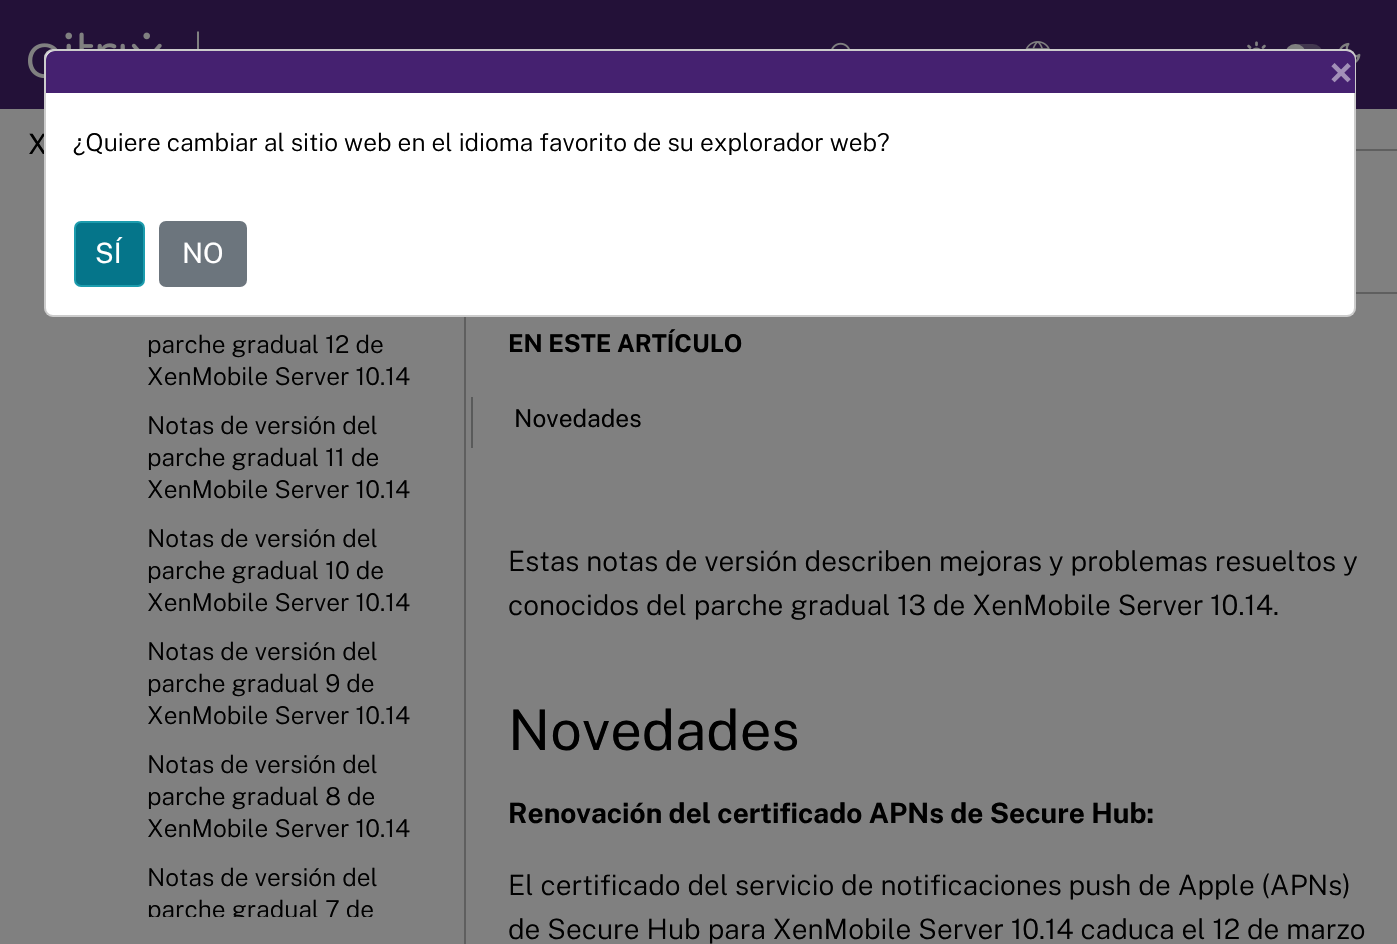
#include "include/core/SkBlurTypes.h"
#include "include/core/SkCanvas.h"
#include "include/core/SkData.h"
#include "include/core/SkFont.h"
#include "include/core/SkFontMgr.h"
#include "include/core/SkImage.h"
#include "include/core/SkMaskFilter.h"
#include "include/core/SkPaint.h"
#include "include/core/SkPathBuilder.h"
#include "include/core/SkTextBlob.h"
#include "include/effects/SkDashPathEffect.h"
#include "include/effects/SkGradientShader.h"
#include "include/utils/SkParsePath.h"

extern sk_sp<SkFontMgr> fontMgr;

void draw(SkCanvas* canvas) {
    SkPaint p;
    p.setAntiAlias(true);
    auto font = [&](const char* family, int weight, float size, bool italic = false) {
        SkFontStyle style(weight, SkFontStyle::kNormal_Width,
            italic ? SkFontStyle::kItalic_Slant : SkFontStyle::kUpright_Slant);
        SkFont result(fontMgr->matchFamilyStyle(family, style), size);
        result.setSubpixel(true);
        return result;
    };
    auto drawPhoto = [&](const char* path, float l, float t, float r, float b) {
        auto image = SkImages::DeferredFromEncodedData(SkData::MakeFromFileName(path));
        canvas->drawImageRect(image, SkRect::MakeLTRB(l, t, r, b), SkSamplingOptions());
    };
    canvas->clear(0xFF808080);
    p.setColor(0xFF231138);
    canvas->drawRect(SkRect::MakeLTRB(0, 0, 1397, 109), p);
    drawPhoto("media/1.png", 28, 32, 162, 79);
    p.setColor(0xFF808080);
    canvas->drawPath(SkPathBuilder().moveTo(198, 31).lineTo(197, 32).lineTo(197, 82).lineTo(198, 83).lineTo(199, 82).lineTo(199, 32).close().detach(), p);
    drawPhoto("media/2.png", 831, 42, 850, 49);
    drawPhoto("media/3.png", 1025, 41, 1050, 49);
    drawPhoto("media/4.png", 1247, 41, 1266, 49);
    p.setColor(0xFF42374F);
    canvas->drawRoundRect(SkRect::MakeLTRB(1285, 44, 1323, 65), 10.5f, 10.5f, p);
    p.setColor(0xFF808080);
    canvas->drawCircle(1295.5f, 54.5f, 10.5f, p);
    drawPhoto("media/5.png", 1339, 42, 1361, 63);
    auto font1 = font("Public Sans", 400, 28);
    p.setColor(0xFF000000);
    canvas->drawString("X", 28, 154, font1, p);
    p.setColor(0xFFFFFFFF);
    canvas->drawRoundRect(SkRect::MakeLTRB(44, 49, 1356, 317), 9, 9, p);
    p.setStyle(SkPaint::kStroke_Style);
    p.setStrokeWidth(2);
    p.setColor(0x33000000);
    canvas->drawRoundRect(SkRect::MakeLTRB(45, 50, 1355, 316), 8, 8, p);
    p.setStyle(SkPaint::kFill_Style);
    p.setColor(0xFF452170);
    canvas->drawPath(SkPathBuilder().moveTo(55, 51).lineTo(1346, 51).cubicTo(1351, 51, 1355, 55, 1355, 60).lineTo(1355, 93).lineTo(46, 93).lineTo(46, 60).cubicTo(46, 55, 50, 51, 55, 51).close().detach(), p);
    auto font2 = font("Public Sans", 700, 42);
    p.setColor(0xFFA290B8);
    canvas->drawString("×", 1329, 88, font2, p);
    auto font3 = font("Public Sans", 300, 24.5f);
    p.setColor(0xFF000000);
    canvas->drawString("¿Quiere cambiar al sitio web en el idioma favorito de su explorador web?", 73, 151, font3, p);
    p.setColor(0xFF05758A);
    canvas->drawRoundRect(SkRect::MakeLTRB(75, 222, 144, 286), 6, 6, p);
    p.setStyle(SkPaint::kStroke_Style);
    p.setColor(0xFF1C9CAD);
    canvas->drawRoundRect(SkRect::MakeLTRB(75, 222, 144, 286), 6, 6, p);
    p.setStyle(SkPaint::kFill_Style);
    p.setColor(0xFFFFFFFF);
    canvas->drawString("SÍ", 95, 263, font1, p);
    p.setColor(0xFF6C757D);
    canvas->drawRoundRect(SkRect::MakeLTRB(160, 222, 246, 286), 6, 6, p);
    p.setStyle(SkPaint::kStroke_Style);
    canvas->drawRoundRect(SkRect::MakeLTRB(160, 222, 246, 286), 6, 6, p);
    p.setStyle(SkPaint::kFill_Style);
    p.setColor(0xFFFFFFFF);
    canvas->drawString("NO", 182, 263, font1, p);
    p.setColor(0xFF5F5F5F);
    canvas->drawRect(SkRect::MakeLTRB(464, 317, 466, 944), p);
    p.setColor(0xFF000000);
    {
        const struct { const char* s; float x, y; } items[] = {
            {"parche gradual 12 de", 147, 353},
            {"XenMobile Server 10.14", 147, 385},
            {"Notas de versión del", 147, 434},
            {"parche gradual 11 de", 147, 466},
            {"XenMobile Server 10.14", 147, 498},
            {"Notas de versión del", 147, 547},
            {"parche gradual 10 de", 147, 579},
            {"XenMobile Server 10.14", 147, 611},
            {"Notas de versión del", 147, 660},
            {"parche gradual 9 de", 147, 692},
            {"XenMobile Server 10.14", 147, 724},
            {"Notas de versión del", 147, 773},
            {"parche gradual 8 de", 147, 805},
            {"XenMobile Server 10.14", 147, 837},
            {"Notas de versión del", 147, 886},
        };
        for (auto [s, x, y] : items) {
            canvas->drawString(s, x, y, font3, p);
        }
    }
    canvas->save();
    canvas->clipRect(SkRect::MakeLTRB(32, 182, 464, 917));
    canvas->drawString("parche gradual 7 de", 147, 918, font3, p);
    canvas->restore();
    p.setColor(0xFF5F5F5F);
    canvas->drawRect(SkRect::MakeLTRB(1356, 149, 1397, 151), p);
    canvas->drawRect(SkRect::MakeLTRB(1356, 292, 1397, 294), p);
    auto font4 = font("Public Sans", 700, 24.5f);
    p.setColor(0xFF000000);
    canvas->drawString("EN ESTE ARTÍCULO", 508, 352, font4, p);
    p.setColor(0xFF595A5A);
    canvas->drawRect(SkRect::MakeLTRB(471, 397, 473, 448), p);
    auto font5 = font("Public Sans", 400, 24.5f);
    p.setColor(0xFF000000);
    canvas->drawString("Novedades", 514, 427, font5, p);
    auto font6 = font("Public Sans", 300, 28);
    canvas->drawString("Estas notas de versión describen mejoras y problemas resueltos y", 508, 571, font6, p);
    canvas->drawString("conocidos del parche gradual 13 de XenMobile Server 10.14.", 508, 615, font6, p);
    auto font7 = font("Public Sans", 400, 56);
    canvas->drawString("Novedades", 508, 750, font7, p);
    auto font8 = font("Public Sans", 700, 28);
    canvas->drawString("Renovación del certificado APNs de Secure Hub:", 508, 823, font8, p);
    canvas->drawString("El certificado del servicio de notificaciones push de Apple (APNs)", 508, 895, font6, p);
    canvas->drawString("de Secure Hub para XenMobile Server 10.14 caduca el 12 de marzo", 508, 939, font6, p);
}
